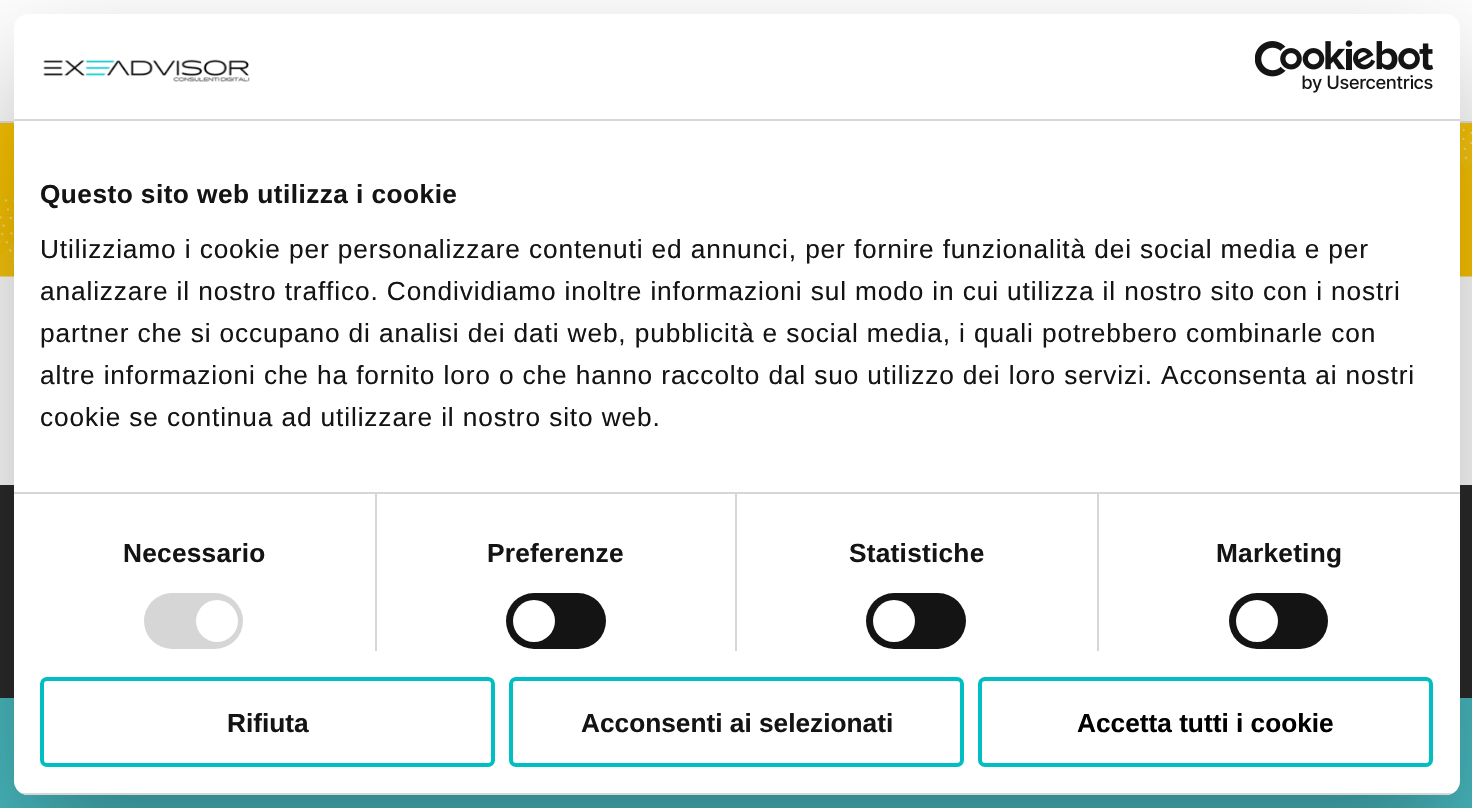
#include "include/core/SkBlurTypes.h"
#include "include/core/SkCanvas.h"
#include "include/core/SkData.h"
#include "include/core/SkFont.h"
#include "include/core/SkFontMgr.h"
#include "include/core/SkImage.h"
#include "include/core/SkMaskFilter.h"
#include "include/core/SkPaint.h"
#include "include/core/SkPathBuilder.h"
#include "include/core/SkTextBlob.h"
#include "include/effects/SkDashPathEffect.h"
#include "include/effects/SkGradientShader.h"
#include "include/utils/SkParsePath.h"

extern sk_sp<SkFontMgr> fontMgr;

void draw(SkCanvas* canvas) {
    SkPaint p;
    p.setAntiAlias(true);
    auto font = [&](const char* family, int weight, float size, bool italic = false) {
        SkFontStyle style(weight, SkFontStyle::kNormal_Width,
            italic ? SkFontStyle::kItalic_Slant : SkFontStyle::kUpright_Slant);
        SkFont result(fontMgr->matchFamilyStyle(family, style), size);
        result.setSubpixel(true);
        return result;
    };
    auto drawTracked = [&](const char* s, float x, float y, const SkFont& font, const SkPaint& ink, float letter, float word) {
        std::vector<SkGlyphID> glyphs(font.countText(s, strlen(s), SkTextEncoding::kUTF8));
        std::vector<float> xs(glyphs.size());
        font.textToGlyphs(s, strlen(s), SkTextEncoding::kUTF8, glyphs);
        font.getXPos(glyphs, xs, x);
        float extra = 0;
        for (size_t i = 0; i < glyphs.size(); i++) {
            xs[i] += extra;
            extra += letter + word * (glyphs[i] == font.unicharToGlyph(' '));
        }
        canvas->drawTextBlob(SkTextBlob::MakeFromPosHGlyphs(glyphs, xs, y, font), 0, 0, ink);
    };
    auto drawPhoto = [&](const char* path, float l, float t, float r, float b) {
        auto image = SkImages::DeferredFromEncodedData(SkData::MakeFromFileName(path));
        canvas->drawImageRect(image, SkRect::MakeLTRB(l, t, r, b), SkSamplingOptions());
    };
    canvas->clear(0xFFFFFFFF);
    p.setColor(0xFFE1E1E1);
    canvas->drawRect(SkRect::MakeLTRB(0, 121, 1472, 123), p);
    drawPhoto("media/1.png", 0, 123, 1472, 277);
    p.setColor(0xFF2A2A2A);
    canvas->drawRect(SkRect::MakeLTRB(0, 485, 1472, 698), p);
    p.setColor(0xFF48BAC0);
    canvas->drawRect(SkRect::MakeLTRB(0, 698, 1472, 808), p);
    p.setColor(0x4D000000);
    p.setMaskFilter(SkMaskFilter::MakeBlur(kNormal_SkBlurStyle, 59.5f));
    canvas->drawRoundRect(SkRect::MakeLTRB(14, 70, 1460, 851), 14, 14, p);
    p.setMaskFilter(nullptr);
    p.setColor(0xFFFFFFFF);
    canvas->drawRoundRect(SkRect::MakeLTRB(14, 14, 1460, 795), 14, 14, p);
    p.setColor(0xFFD6D6D6);
    canvas->drawRect(SkRect::MakeLTRB(14, 119, 1460, 121), p);
    drawPhoto("media/2.png", 43, 59, 250, 82);
    drawPhoto("media/3.png", 1255, 40, 1433, 93);
    canvas->drawRect(SkRect::MakeLTRB(14, 492, 1460, 494), p);
    auto font1 = font("Liberation Sans", 700, 26.25f);
    p.setColor(0xFF141414);
    drawTracked("Questo sito web utilizza i cookie", 40, 203, font1, p, 0.45f, 0);
    auto font2 = font("Liberation Sans", 400, 26.25f);
    {
        const struct { const char* s; float x, y; } items[] = {
            {"Utilizziamo i cookie per personalizzare contenuti ed annunci, per fornire funzionalità dei social media e per", 40, 258},
            {"analizzare il nostro traffico. Condividiamo inoltre informazioni sul modo in cui utilizza il nostro sito con i nostri", 40, 300},
            {"partner che si occupano di analisi dei dati web, pubblicità e social media, i quali potrebbero combinarle con", 40, 342},
            {"altre informazioni che ha fornito loro o che hanno raccolto dal suo utilizzo dei loro servizi. Acconsenta ai nostri", 40, 384},
            {"cookie se continua ad utilizzare il nostro sito web.", 40, 426},
        };
        for (auto [s, x, y] : items) {
            drawTracked(s, x, y, font2, p, 0.88f, 0);
        }
    }
    p.setColor(0xFFD6D6D6);
    canvas->drawRect(SkRect::MakeLTRB(375, 494, 377, 651), p);
    p.setColor(0xFF141414);
    drawTracked("Necessario", 123, 562, font1, p, 0.25f, 0);
    p.setColor(0xFFD6D6D6);
    canvas->drawRoundRect(SkRect::MakeLTRB(144, 593, 243, 649), 28, 28, p);
    p.setColor(0xFFFFFFFF);
    canvas->drawCircle(217, 621, 21, p);
    p.setColor(0xFFD6D6D6);
    canvas->drawRect(SkRect::MakeLTRB(735, 494, 737, 651), p);
    p.setColor(0xFF141414);
    drawTracked("Preferenze", 487, 562, font1, p, 0.25f, 0);
    canvas->drawRoundRect(SkRect::MakeLTRB(506, 593, 606, 649), 28, 28, p);
    p.setColor(0xFFFFFFFF);
    canvas->drawCircle(534, 621, 21, p);
    p.setColor(0xFFD6D6D6);
    canvas->drawRect(SkRect::MakeLTRB(1097, 494, 1099, 651), p);
    p.setColor(0xFF141414);
    drawTracked("Statistiche", 849, 562, font1, p, 0.25f, 0);
    canvas->drawRoundRect(SkRect::MakeLTRB(866, 593, 966, 649), 28, 28, p);
    p.setColor(0xFFFFFFFF);
    canvas->drawCircle(894, 621, 21, p);
    p.setColor(0xFF141414);
    drawTracked("Marketing", 1216, 562, font1, p, 0.25f, 0);
    canvas->drawRoundRect(SkRect::MakeLTRB(1229, 593, 1328, 649), 28, 28, p);
    p.setColor(0xFFFFFFFF);
    canvas->drawCircle(1257, 621, 21, p);
    canvas->save();
    canvas->clipPath(SkPathBuilder().moveTo(28, 14).lineTo(1446, 14).cubicTo(1453.5f, 14, 1460, 20.5f, 1460, 28).lineTo(1460, 781).cubicTo(1460, 788.5f, 1453.5f, 795, 1446, 795).lineTo(28, 795).cubicTo(20.5f, 795, 14, 788.5f, 14, 781).lineTo(14, 28).cubicTo(14, 20.5f, 20.5f, 14, 28, 14).close().detach(), true);
    p.setColor(0xFFD6D6D6);
    canvas->drawRect(SkRect::MakeLTRB(14, 793, 1460, 795), p);
    canvas->restore();
    p.setStyle(SkPaint::kStroke_Style);
    p.setStrokeWidth(4);
    p.setColor(0xFF00BEC2);
    canvas->drawRoundRect(SkRect::MakeLTRB(42, 679, 493, 765), 5, 5, p);
    p.setStyle(SkPaint::kFill_Style);
    p.setColor(0xFF141414);
    canvas->drawString("Rifiuta", 227, 732, font1, p);
    p.setStyle(SkPaint::kStroke_Style);
    p.setColor(0xFF00BEC2);
    canvas->drawRoundRect(SkRect::MakeLTRB(511, 679, 962, 765), 5, 5, p);
    p.setStyle(SkPaint::kFill_Style);
    p.setColor(0xFF141414);
    canvas->drawString("Acconsenti ai selezionati", 581, 732, font1, p);
    p.setStyle(SkPaint::kStroke_Style);
    p.setColor(0xFF00BEC2);
    canvas->drawRoundRect(SkRect::MakeLTRB(980, 679, 1431, 765), 5, 5, p);
    p.setStyle(SkPaint::kFill_Style);
    p.setColor(0xFF000000);
    canvas->drawString("Accetta tutti i cookie", 1077, 732, font1, p);
}
